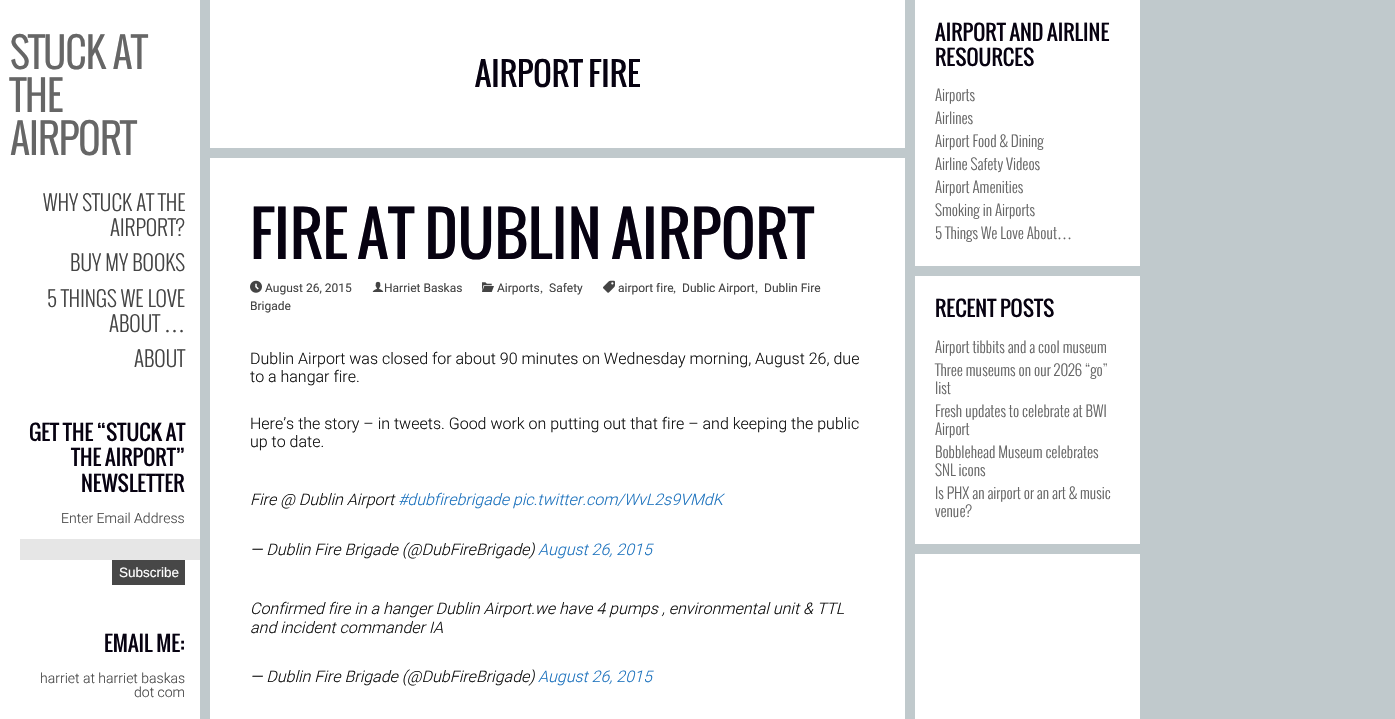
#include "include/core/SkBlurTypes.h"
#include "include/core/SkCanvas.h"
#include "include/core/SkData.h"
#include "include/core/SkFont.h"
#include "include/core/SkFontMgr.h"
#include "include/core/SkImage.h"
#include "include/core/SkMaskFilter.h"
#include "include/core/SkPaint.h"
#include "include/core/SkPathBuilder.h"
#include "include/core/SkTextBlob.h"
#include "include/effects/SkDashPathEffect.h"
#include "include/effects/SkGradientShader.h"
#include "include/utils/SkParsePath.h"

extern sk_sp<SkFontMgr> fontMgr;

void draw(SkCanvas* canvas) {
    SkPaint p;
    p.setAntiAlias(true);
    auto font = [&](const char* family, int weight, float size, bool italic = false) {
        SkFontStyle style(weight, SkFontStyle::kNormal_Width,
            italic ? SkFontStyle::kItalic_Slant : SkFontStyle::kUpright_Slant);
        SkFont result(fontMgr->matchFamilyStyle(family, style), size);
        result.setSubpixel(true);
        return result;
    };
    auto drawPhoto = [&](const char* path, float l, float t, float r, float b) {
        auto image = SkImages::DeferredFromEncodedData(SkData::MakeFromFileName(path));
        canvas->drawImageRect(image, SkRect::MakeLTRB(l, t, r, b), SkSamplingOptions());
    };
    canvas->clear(0xFFC0C9CC);
    p.setColor(0xFFFFFFFF);
    canvas->drawRect(SkRect::MakeLTRB(0, 0, 200, 719), p);
    canvas->drawRect(SkRect::MakeLTRB(915, 0, 1140, 266), p);
    auto font1 = font("Oswald", 400, 21);
    p.setColor(0xFF070211);
    canvas->drawString("AIRPORT AND AIRLINE", 935, 41, font1, p);
    canvas->drawString("RESOURCES", 935, 66, font1, p);
    auto font2 = font("Oswald", 300, 15);
    p.setColor(0xFF666666);
    {
        const struct { const char* s; float x, y; } items[] = {
            {"Airports", 935, 101},
            {"Airlines", 935, 124},
            {"Airport Food & Dining", 935, 147},
            {"Airline Safety Videos", 935, 170},
            {"Airport Amenities", 935, 193},
            {"Smoking in Airports", 935, 216},
            {"5 Things We Love About", 935, 239},
        };
        for (auto [s, x, y] : items) {
            canvas->drawString(s, x, y, font2, p);
        }
    }
    auto font3 = font("Liberation Serif", 400, 15);
    canvas->drawString("…", 1057, 239, font3, p);
    p.setColor(0xFFFFFFFF);
    canvas->drawRect(SkRect::MakeLTRB(915, 276, 1140, 544), p);
    p.setColor(0xFF070211);
    canvas->drawString("RECENT POSTS", 935, 317, font1, p);
    p.setColor(0xFF666666);
    {
        const struct { const char* s; float x, y; } items[] = {
            {"Airport tibbits and a cool museum", 935, 353},
            {"Three museums on our 2026 “go”", 935, 376},
            {"list", 935, 394},
            {"Fresh updates to celebrate at BWI", 935, 417},
            {"Airport", 935, 435},
            {"Bobblehead Museum celebrates", 935, 458},
            {"SNL icons", 935, 476},
            {"Is PHX an airport or an art & music", 935, 499},
            {"venue?", 935, 517},
        };
        for (auto [s, x, y] : items) {
            canvas->drawString(s, x, y, font2, p);
        }
    }
    p.setColor(0xFFFFFFFF);
    canvas->drawRect(SkRect::MakeLTRB(915, 554, 1140, 719), p);
    auto font4 = font("Oswald", 700, 40);
    p.setColor(0xFF666666);
    {
        const struct { const char* s; float x, y; } items[] = {
            {"STUCK AT", 10, 69},
            {"THE", 10, 112},
            {"AIRPORT", 10, 155},
        };
        for (auto [s, x, y] : items) {
            canvas->drawString(s, x, y, font4, p);
        }
    }
    auto font5 = font("Oswald", 300, 21);
    p.setColor(0xFF444444);
    {
        const struct { const char* s; float x, y; } items[] = {
            {"WHY STUCK AT THE", 43, 211},
            {"AIRPORT?", 110, 236},
            {"BUY MY BOOKS", 70, 271},
            {"5 THINGS WE LOVE", 47, 307},
            {"ABOUT", 109, 332},
        };
        for (auto [s, x, y] : items) {
            canvas->drawString(s, x, y, font5, p);
        }
    }
    auto font6 = font("Liberation Serif", 400, 21);
    canvas->drawString("…", 164, 332, font6, p);
    canvas->drawString("ABOUT", 134, 367, font5, p);
    p.setColor(0xFF070211);
    {
        const struct { const char* s; float x, y; } items[] = {
            {"GET THE “STUCK AT", 29, 441},
            {"THE AIRPORT”", 71, 466},
            {"NEWSLETTER", 81, 492},
        };
        for (auto [s, x, y] : items) {
            canvas->drawString(s, x, y, font1, p);
        }
    }
    auto font7 = font("Roboto", 300, 14);
    p.setColor(0xFF444444);
    canvas->drawString("Enter Email Address", 61, 523, font7, p);
    p.setColor(0xFFE6E6E6);
    canvas->drawRect(SkRect::MakeLTRB(20, 539, 200, 560), p);
    p.setColor(0xFF474747);
    canvas->drawRect(SkRect::MakeLTRB(112, 560, 185, 585), p);
    auto font8 = font("Liberation Sans", 400, 13.5f);
    p.setColor(0xFFFFFFFF);
    canvas->drawString("Subscribe", 119, 577, font8, p);
    p.setColor(0xFF070211);
    canvas->drawString("EMAIL ME:", 104, 652, font1, p);
    p.setColor(0xFF444444);
    canvas->drawString("harriet at harriet baskas", 40, 683, font7, p);
    canvas->drawString("dot com", 134, 697, font7, p);
    p.setColor(0xFFFFFFFF);
    canvas->drawRect(SkRect::MakeLTRB(210, 0, 905, 148), p);
    auto font9 = font("Oswald", 400, 32);
    p.setColor(0xFF070211);
    canvas->drawString("AIRPORT FIRE", 475, 87, font9, p);
    p.setColor(0xFFFFFFFF);
    canvas->drawRect(SkRect::MakeLTRB(210, 158, 905, 719), p);
    auto font10 = font("Oswald", 400, 60);
    p.setColor(0xFF070211);
    canvas->drawString("FIRE AT DUBLIN AIRPORT", 250, 259, font10, p);
    drawPhoto("media/1.png", 250, 280, 262, 293);
    auto font11 = font("Roboto", 400, 12);
    p.setColor(0xFF444444);
    canvas->drawString("August 26, 2015", 265, 292, font11, p);
    drawPhoto("media/2.png", 372, 281, 384, 292);
    canvas->drawString("Harriet Baskas", 384, 292, font11, p);
    drawPhoto("media/3.png", 482, 282, 494, 292);
    canvas->drawString("Airports", 497, 292, font11, p);
    auto font12 = font("Liberation Serif", 400, 12);
    canvas->drawString(",", 540, 292, font12, p);
    canvas->drawString("Safety", 549, 292, font11, p);
    drawPhoto("media/4.png", 603, 280, 615, 293);
    canvas->drawString("airport fire", 618, 292, font11, p);
    canvas->drawString(",", 673, 292, font12, p);
    canvas->drawString("Dublic Airport", 682, 292, font11, p);
    canvas->drawString(",", 755, 292, font12, p);
    canvas->drawString("Dublin Fire", 764, 292, font11, p);
    canvas->drawString("Brigade", 250, 310, font11, p);
    auto font13 = font("Roboto", 300, 16);
    p.setColor(0xFF111111);
    {
        const struct { const char* s; float x, y; } items[] = {
            {"Dublin Airport was closed for about 90 minutes on Wednesday morning, August 26, due", 250, 364},
            {"to a hangar fire.", 250, 382},
            {"Here’s the story – in tweets. Good work on putting out that fire – and keeping the public", 250, 429},
            {"up to date.", 250, 447},
        };
        for (auto [s, x, y] : items) {
            canvas->drawString(s, x, y, font13, p);
        }
    }
    auto font14 = font("Roboto", 300, 16, true);
    canvas->drawString("Fire @ Dublin Airport", 250, 505, font14, p);
    p.setColor(0xFF1E73BE);
    canvas->drawString("#dubfirebrigade pic.twitter.com/WvL2s9VMdK", 398, 505, font14, p);
    p.setColor(0xFF111111);
    canvas->drawString("— Dublin Fire Brigade (@DubFireBrigade)", 250, 555, font14, p);
    p.setColor(0xFF1E73BE);
    canvas->drawString("August 26, 2015", 538, 555, font14, p);
    p.setColor(0xFF111111);
    {
        const struct { const char* s; float x, y; } items[] = {
            {"Confirmed fire in a hanger Dublin Airport.we have 4 pumps , environmental unit & TTL", 250, 614},
            {"and incident commander IA", 250, 633},
            {"— Dublin Fire Brigade (@DubFireBrigade)", 250, 682},
        };
        for (auto [s, x, y] : items) {
            canvas->drawString(s, x, y, font14, p);
        }
    }
    p.setColor(0xFF1E73BE);
    canvas->drawString("August 26, 2015", 538, 682, font14, p);
}
